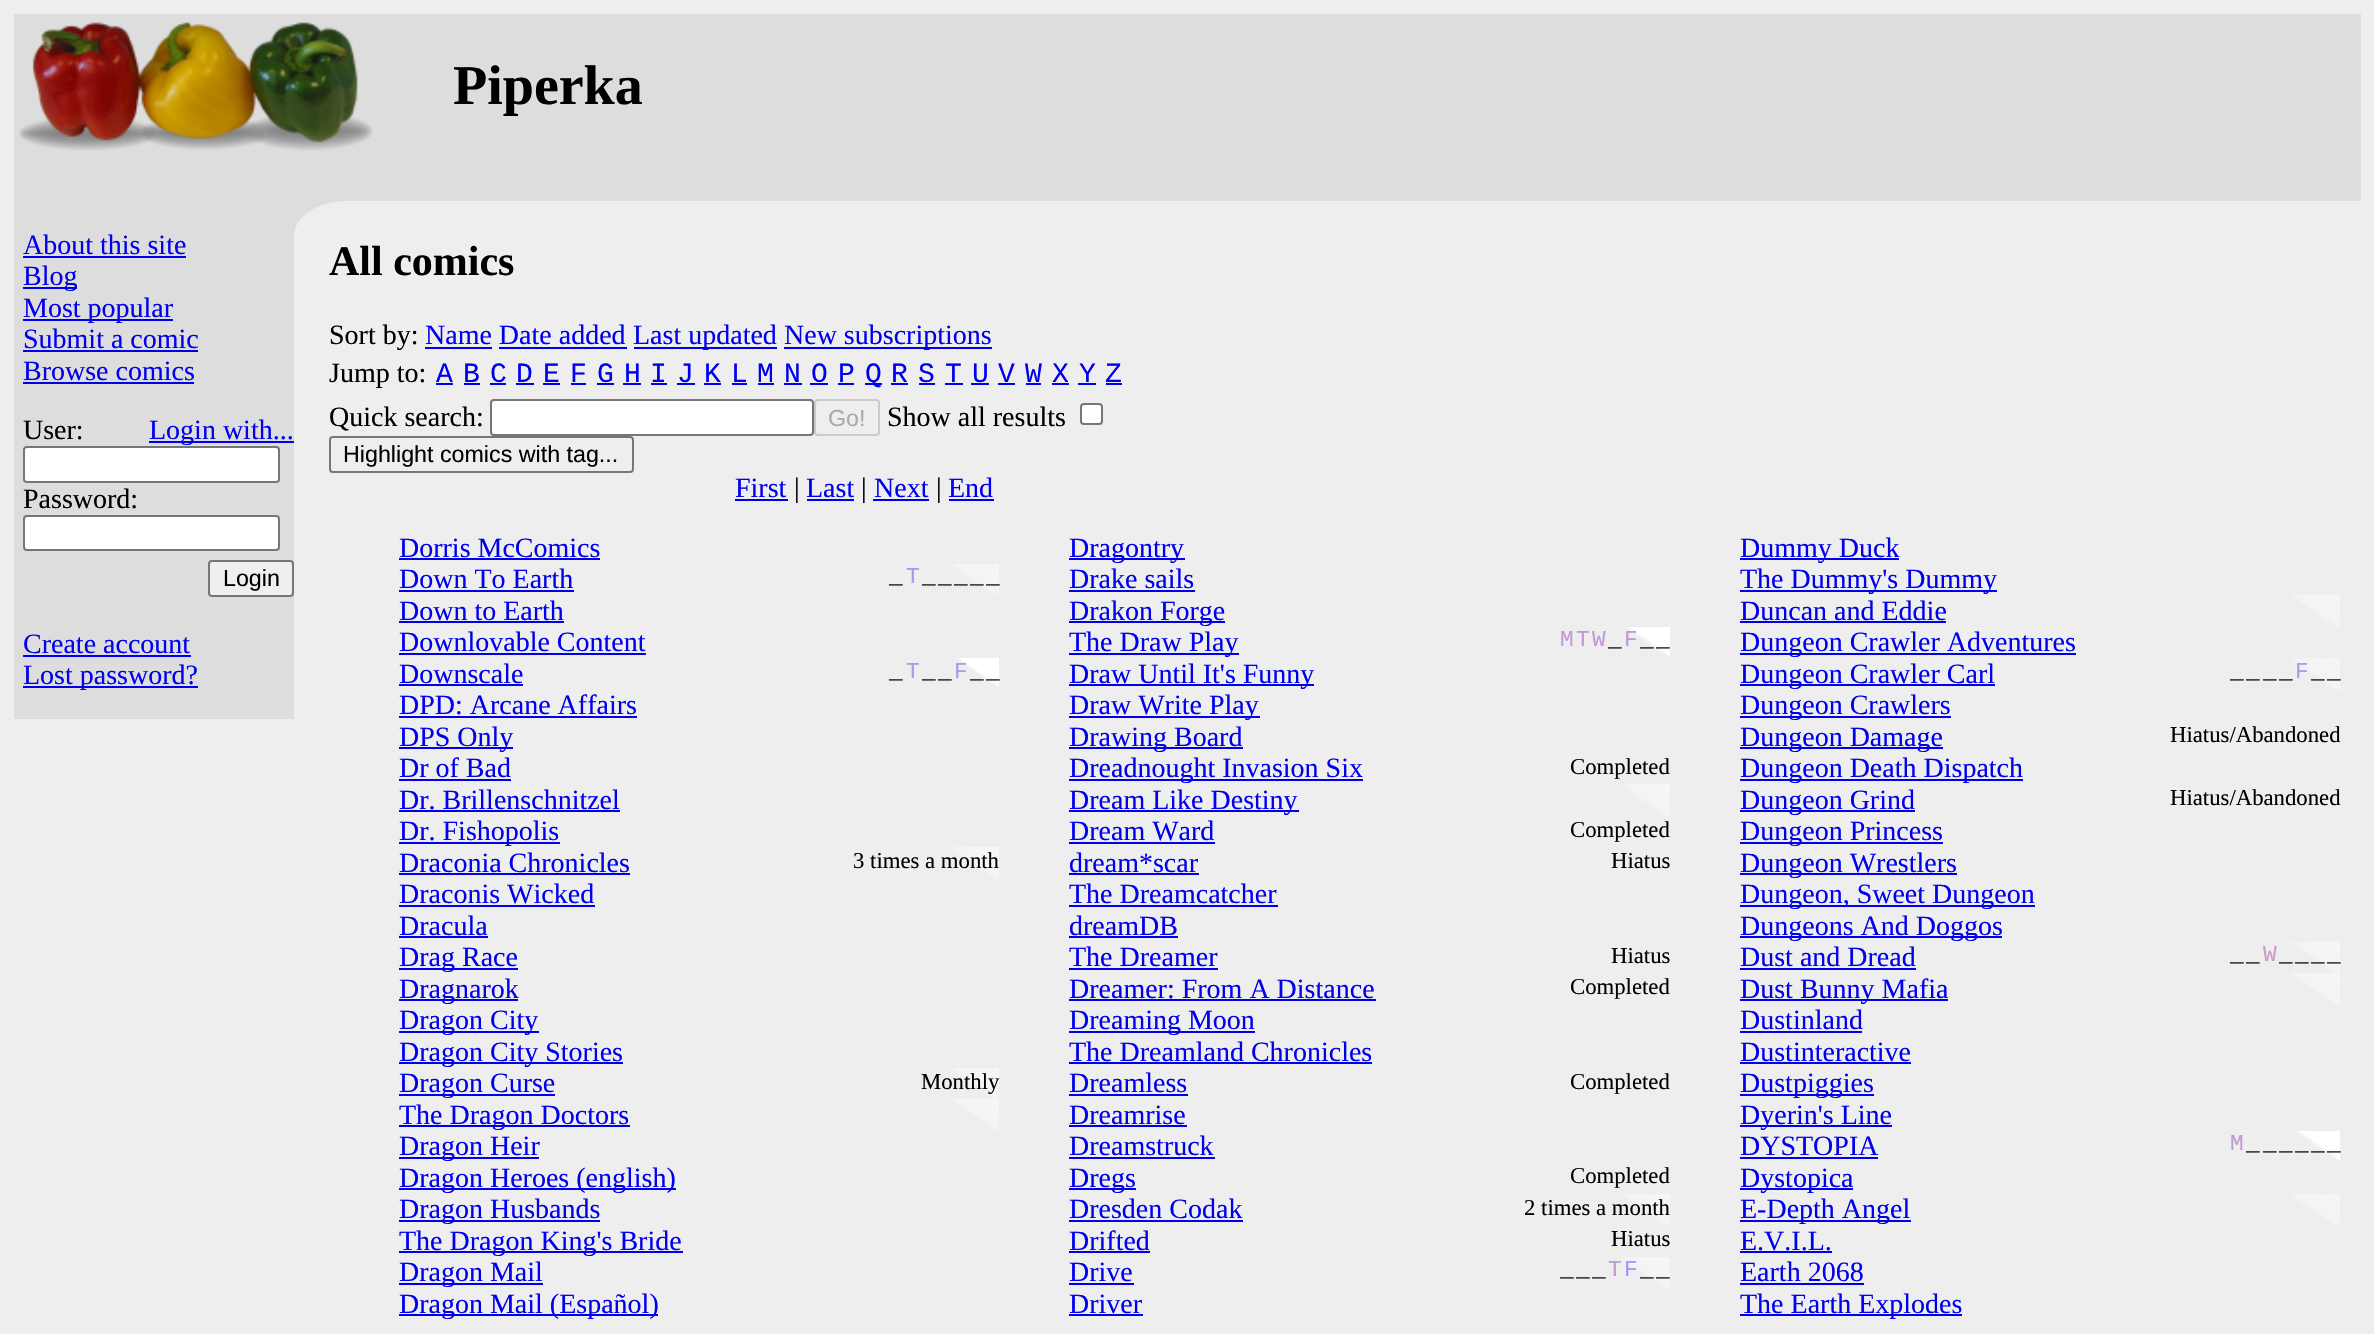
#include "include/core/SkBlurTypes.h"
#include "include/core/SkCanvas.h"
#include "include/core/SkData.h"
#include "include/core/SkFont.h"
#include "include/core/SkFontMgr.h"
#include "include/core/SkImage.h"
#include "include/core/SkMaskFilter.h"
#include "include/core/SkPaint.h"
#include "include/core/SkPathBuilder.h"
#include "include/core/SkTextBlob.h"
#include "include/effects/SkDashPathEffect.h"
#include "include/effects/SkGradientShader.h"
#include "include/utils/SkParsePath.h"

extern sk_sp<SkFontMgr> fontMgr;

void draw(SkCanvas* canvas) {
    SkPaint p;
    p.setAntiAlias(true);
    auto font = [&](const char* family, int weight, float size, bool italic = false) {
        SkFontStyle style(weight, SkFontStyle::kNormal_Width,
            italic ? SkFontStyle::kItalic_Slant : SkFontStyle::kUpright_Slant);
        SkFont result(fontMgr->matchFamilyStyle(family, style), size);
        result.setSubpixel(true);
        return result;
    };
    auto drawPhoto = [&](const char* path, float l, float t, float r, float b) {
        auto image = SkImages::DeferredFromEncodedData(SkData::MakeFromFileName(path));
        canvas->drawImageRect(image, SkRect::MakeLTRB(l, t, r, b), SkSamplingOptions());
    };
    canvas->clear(0xFFEEEEEE);
    p.setColor(0xFFDDDDDD);
    canvas->drawRect(SkRect::MakeLTRB(14, 14, 2361, 201), p);
    drawPhoto("media/1.png", 19, 22, 373, 151);
    auto font1 = font("Liberation Serif", 700, 56);
    p.setColor(0xFF000000);
    canvas->drawString("Piperka", 453, 104, font1, p);
    p.setColor(0xFFDDDDDD);
    canvas->drawRect(SkRect::MakeLTRB(294, 201, 345, 236), p);
    canvas->drawRect(SkRect::MakeLTRB(14, 201, 294, 719), p);
    auto font2 = font("Liberation Serif", 400, 28);
    p.setColor(0xFF0000EE);
    canvas->drawString("About this site", 23, 254, font2, p);
    canvas->drawRect(SkRect::MakeLTRB(23, 256, 186, 258), p);
    canvas->drawRect(SkRect::MakeLTRB(23, 287, 77, 289), p);
    canvas->drawString("Blog", 23, 285, font2, p);
    canvas->drawRect(SkRect::MakeLTRB(23, 319, 173, 321), p);
    canvas->drawString("Most popular", 23, 317, font2, p);
    canvas->drawString("Submit a comic", 23, 348, font2, p);
    canvas->drawRect(SkRect::MakeLTRB(23, 350, 198, 352), p);
    canvas->drawString("Browse comics", 23, 380, font2, p);
    canvas->drawRect(SkRect::MakeLTRB(23, 382, 194, 384), p);
    p.setColor(0xFF000000);
    canvas->drawString("User:", 23, 439, font2, p);
    p.setColor(0xFF0000EE);
    canvas->drawRect(SkRect::MakeLTRB(149, 441, 294, 443), p);
    canvas->drawString("Login with...", 149, 439, font2, p);
    p.setColor(0xFFFFFFFF);
    canvas->drawRoundRect(SkRect::MakeLTRB(24, 447, 279, 482), 3, 3, p);
    p.setStyle(SkPaint::kStroke_Style);
    p.setStrokeWidth(2);
    p.setColor(0xFF767676);
    canvas->drawRoundRect(SkRect::MakeLTRB(24, 447, 279, 482), 3, 3, p);
    p.setStyle(SkPaint::kFill_Style);
    p.setColor(0xFF000000);
    canvas->drawString("Password:", 23, 508, font2, p);
    p.setColor(0xFFFFFFFF);
    canvas->drawRoundRect(SkRect::MakeLTRB(24, 516, 279, 550), 3, 3, p);
    p.setStyle(SkPaint::kStroke_Style);
    p.setColor(0xFF767676);
    canvas->drawRoundRect(SkRect::MakeLTRB(24, 516, 279, 550), 3, 3, p);
    p.setStyle(SkPaint::kFill_Style);
    p.setColor(0xFFEFEFEF);
    canvas->drawRoundRect(SkRect::MakeLTRB(209, 561, 293, 596), 3, 3, p);
    p.setStyle(SkPaint::kStroke_Style);
    p.setColor(0xFF767676);
    canvas->drawRoundRect(SkRect::MakeLTRB(209, 561, 293, 596), 3, 3, p);
    auto font3 = font("Liberation Sans", 400, 23.25f);
    p.setStyle(SkPaint::kFill_Style);
    p.setColor(0xFF000000);
    canvas->drawString("Login", 223, 586, font3, p);
    p.setColor(0xFF0000EE);
    canvas->drawString("Create account", 23, 653, font2, p);
    canvas->drawRect(SkRect::MakeLTRB(23, 655, 191, 657), p);
    canvas->drawRect(SkRect::MakeLTRB(23, 686, 198, 688), p);
    canvas->drawString("Lost password?", 23, 684, font2, p);
    p.setColor(0xFFEEEEEE);
    canvas->drawPath(SkPathBuilder().moveTo(346, 201).lineTo(2361, 201).lineTo(2361, 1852).lineTo(294, 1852).lineTo(294, 236).cubicTo(294, 217, 318, 201, 346, 201).close().detach(), p);
    auto font4 = font("Liberation Serif", 700, 42);
    p.setColor(0xFF000000);
    canvas->drawString("All comics", 329, 275, font4, p);
    canvas->drawString("Sort by:", 329, 344, font2, p);
    p.setColor(0xFF0000EE);
    canvas->drawString("Name Date added", 425, 344, font2, p);
    canvas->drawRect(SkRect::MakeLTRB(425, 347, 492, 349), p);
    canvas->drawRect(SkRect::MakeLTRB(634, 347, 777, 349), p);
    canvas->drawString("Last updated", 633, 344, font2, p);
    canvas->drawRect(SkRect::MakeLTRB(784, 347, 992, 349), p);
    canvas->drawString("New subscriptions", 784, 344, font2, p);
    canvas->drawRect(SkRect::MakeLTRB(499, 347, 627, 349), p);
    p.setColor(0xFF000000);
    canvas->drawString("Jump to:", 329, 382, font2, p);
    auto font5 = font("Liberation Mono", 400, 28);
    p.setColor(0xFF0000EE);
    canvas->drawString("A", 436, 382, font5, p);
    canvas->drawRect(SkRect::MakeLTRB(436, 383, 453, 385), p);
    canvas->drawString("B", 463, 382, font5, p);
    canvas->drawRect(SkRect::MakeLTRB(464, 383, 480, 385), p);
    canvas->drawString("C", 490, 382, font5, p);
    canvas->drawRect(SkRect::MakeLTRB(490, 383, 506, 385), p);
    canvas->drawString("D", 516, 382, font5, p);
    canvas->drawRect(SkRect::MakeLTRB(516, 383, 534, 385), p);
    canvas->drawString("E", 543, 382, font5, p);
    canvas->drawRect(SkRect::MakeLTRB(543, 383, 560, 385), p);
    canvas->drawString("F", 570, 382, font5, p);
    canvas->drawRect(SkRect::MakeLTRB(571, 383, 586, 385), p);
    canvas->drawString("G", 597, 382, font5, p);
    canvas->drawRect(SkRect::MakeLTRB(597, 383, 614, 385), p);
    canvas->drawString("H", 624, 382, font5, p);
    canvas->drawRect(SkRect::MakeLTRB(623, 383, 641, 385), p);
    canvas->drawString("I", 650, 382, font5, p);
    canvas->drawRect(SkRect::MakeLTRB(651, 383, 667, 385), p);
    canvas->drawString("J", 677, 382, font5, p);
    canvas->drawRect(SkRect::MakeLTRB(677, 383, 695, 385), p);
    canvas->drawString("K", 704, 382, font5, p);
    canvas->drawRect(SkRect::MakeLTRB(704, 383, 721, 385), p);
    canvas->drawString("L", 731, 382, font5, p);
    canvas->drawRect(SkRect::MakeLTRB(732, 383, 747, 385), p);
    canvas->drawString("M", 757, 382, font5, p);
    canvas->drawRect(SkRect::MakeLTRB(758, 383, 774, 385), p);
    canvas->drawString("N", 784, 382, font5, p);
    canvas->drawRect(SkRect::MakeLTRB(784, 383, 802, 385), p);
    canvas->drawString("O", 811, 382, font5, p);
    canvas->drawRect(SkRect::MakeLTRB(810, 383, 828, 385), p);
    canvas->drawString("P", 838, 382, font5, p);
    canvas->drawRect(SkRect::MakeLTRB(838, 383, 854, 385), p);
    canvas->drawRect(SkRect::MakeLTRB(865, 383, 882, 385), p);
    canvas->drawString("Q", 865, 382, font5, p);
    canvas->drawString("R", 891, 382, font5, p);
    canvas->drawRect(SkRect::MakeLTRB(891, 383, 908, 385), p);
    canvas->drawString("S", 918, 382, font5, p);
    canvas->drawRect(SkRect::MakeLTRB(919, 383, 935, 385), p);
    canvas->drawString("T", 945, 382, font5, p);
    canvas->drawRect(SkRect::MakeLTRB(945, 383, 963, 385), p);
    canvas->drawString("U", 972, 382, font5, p);
    canvas->drawRect(SkRect::MakeLTRB(971, 383, 989, 385), p);
    canvas->drawString("V", 998, 382, font5, p);
    canvas->drawRect(SkRect::MakeLTRB(998, 383, 1015, 385), p);
    canvas->drawString("W", 1025, 382, font5, p);
    canvas->drawRect(SkRect::MakeLTRB(1026, 383, 1041, 385), p);
    canvas->drawString("X", 1052, 382, font5, p);
    canvas->drawRect(SkRect::MakeLTRB(1052, 383, 1069, 385), p);
    canvas->drawString("Y", 1079, 382, font5, p);
    canvas->drawRect(SkRect::MakeLTRB(1078, 383, 1096, 385), p);
    canvas->drawString("Z", 1105, 382, font5, p);
    canvas->drawRect(SkRect::MakeLTRB(1106, 383, 1122, 385), p);
    p.setColor(0xFF000000);
    canvas->drawString("Quick search:", 329, 426, font2, p);
    p.setColor(0xFFFFFFFF);
    canvas->drawRoundRect(SkRect::MakeLTRB(491, 400, 813, 435), 3, 3, p);
    p.setStyle(SkPaint::kStroke_Style);
    p.setColor(0xFF767676);
    canvas->drawRoundRect(SkRect::MakeLTRB(491, 400, 813, 435), 3, 3, p);
    p.setColor(0xFFCACACA);
    canvas->drawRoundRect(SkRect::MakeLTRB(815, 400, 879, 435), 3, 3, p);
    p.setStyle(SkPaint::kFill_Style);
    p.setColor(0xFFABABAB);
    canvas->drawString("Go!", 828, 426, font3, p);
    p.setColor(0xFF000000);
    canvas->drawString("Show all results", 887, 426, font2, p);
    p.setColor(0xFFFFFFFF);
    canvas->drawRoundRect(SkRect::MakeLTRB(1081, 404, 1102, 424), 3, 3, p);
    p.setStyle(SkPaint::kStroke_Style);
    p.setColor(0xFF767676);
    canvas->drawRoundRect(SkRect::MakeLTRB(1081, 404, 1102, 424), 3, 3, p);
    canvas->drawRoundRect(SkRect::MakeLTRB(330, 437, 633, 472), 3, 3, p);
    p.setStyle(SkPaint::kFill_Style);
    p.setColor(0xFF000000);
    canvas->drawString("Highlight comics with tag...", 343, 462, font3, p);
    p.setColor(0xFF0000EE);
    canvas->drawString("First", 735, 497, font2, p);
    canvas->drawRect(SkRect::MakeLTRB(735, 499, 788, 501), p);
    p.setColor(0xFF000000);
    canvas->drawString("|", 794, 497, font2, p);
    p.setColor(0xFF0000EE);
    canvas->drawString("Last", 806, 497, font2, p);
    canvas->drawRect(SkRect::MakeLTRB(807, 499, 854, 501), p);
    p.setColor(0xFF000000);
    canvas->drawString("|", 861, 497, font2, p);
    p.setColor(0xFF0000EE);
    canvas->drawString("Next", 874, 497, font2, p);
    canvas->drawRect(SkRect::MakeLTRB(873, 499, 929, 501), p);
    p.setColor(0xFF000000);
    canvas->drawString("|", 936, 497, font2, p);
    p.setColor(0xFF0000EE);
    canvas->drawString("End", 948, 497, font2, p);
    canvas->drawRect(SkRect::MakeLTRB(949, 499, 994, 501), p);
    canvas->drawString("Dorris McComics", 399, 557, font2, p);
    canvas->drawRect(SkRect::MakeLTRB(399, 558, 600, 560), p);
    {
        const SkColor colors[] = {0xFFF6F6F6, 0xFFF4F4F4, 0xFFEEEEEE};
        const float stops[] = {0, 0.07f, 0.08f};
        const SkPoint ends[] = {{805, 428}, {593, 731}};
        p.setShader(SkGradientShader::MakeLinear(ends, colors, stops, 3, SkTileMode::kClamp));
        p.setAlpha(255);
    }
    canvas->drawRect(SkRect::MakeLTRB(951, 564, 999, 595), p);
    p.setShader(nullptr);
    p.setColor(0xFF0000EE);
    canvas->drawString("Down To Earth", 399, 588, font2, p);
    canvas->drawRect(SkRect::MakeLTRB(399, 590, 574, 592), p);
    auto font6 = font("Liberation Mono", 400, 22.75f);
    p.setColor(0xFFA199F6);
    canvas->drawString("T", 906, 583, font6, p);
    p.setColor(0xFF000000);
    {
        const struct { const char* s; float x, y; } items[] = {
            {"_", 889, 583},
            {"_", 922, 583},
            {"_", 938, 583},
            {"_", 954, 583},
            {"_", 970, 583},
            {"_", 986, 583},
        };
        for (auto [s, x, y] : items) {
            canvas->drawString(s, x, y, font6, p);
        }
    }
    p.setColor(0xFF0000EE);
    canvas->drawString("Down to Earth", 399, 620, font2, p);
    canvas->drawRect(SkRect::MakeLTRB(399, 621, 564, 623), p);
    canvas->drawString("Downlovable Content", 399, 651, font2, p);
    canvas->drawRect(SkRect::MakeLTRB(399, 653, 646, 655), p);
    {
        const SkColor colors[] = {0xFFFFFFFF, 0xFFFFFFFF, 0xFFEEEEEE};
        const float stops[] = {0, 0.06f, 0.07f};
        const SkPoint ends[] = {{805, 522}, {593, 825}};
        p.setShader(SkGradientShader::MakeLinear(ends, colors, stops, 3, SkTileMode::kClamp));
        p.setAlpha(255);
    }
    canvas->drawRect(SkRect::MakeLTRB(956, 658, 999, 688), p);
    p.setShader(nullptr);
    p.setColor(0xFF0000EE);
    canvas->drawString("Downscale", 399, 683, font2, p);
    canvas->drawRect(SkRect::MakeLTRB(399, 684, 523, 686), p);
    p.setColor(0xFFAF99E8);
    canvas->drawString("T", 906, 678, font6, p);
    canvas->drawString("F", 954, 678, font6, p);
    p.setColor(0xFF000000);
    {
        const struct { const char* s; float x, y; } items[] = {
            {"_", 889, 678},
            {"_", 922, 678},
            {"_", 938, 678},
            {"_", 970, 678},
            {"_", 986, 678},
        };
        for (auto [s, x, y] : items) {
            canvas->drawString(s, x, y, font6, p);
        }
    }
    p.setColor(0xFF0000EE);
    canvas->drawString("DPD: Arcane Affairs", 399, 714, font2, p);
    canvas->drawRect(SkRect::MakeLTRB(399, 716, 637, 718), p);
    canvas->drawRect(SkRect::MakeLTRB(399, 747, 513, 749), p);
    canvas->drawString("DPS Only", 399, 746, font2, p);
    canvas->drawString("Dr of Bad", 399, 777, font2, p);
    canvas->drawRect(SkRect::MakeLTRB(399, 779, 511, 781), p);
    canvas->drawString("Dr. Brillenschnitzel", 399, 809, font2, p);
    canvas->drawRect(SkRect::MakeLTRB(399, 810, 620, 812), p);
    canvas->drawRect(SkRect::MakeLTRB(399, 842, 560, 844), p);
    canvas->drawString("Dr. Fishopolis", 399, 840, font2, p);
    {
        const SkColor colors[] = {0xFFF6F6F6, 0xFFF4F4F4, 0xFFEEEEEE};
        const float stops[] = {0, 0.07f, 0.08f};
        const SkPoint ends[] = {{805, 711}, {593, 1014}};
        p.setShader(SkGradientShader::MakeLinear(ends, colors, stops, 3, SkTileMode::kClamp));
        p.setAlpha(255);
    }
    canvas->drawRect(SkRect::MakeLTRB(951, 847, 999, 879), p);
    p.setShader(nullptr);
    p.setColor(0xFF0000EE);
    canvas->drawString("Draconia Chronicles", 399, 872, font2, p);
    canvas->drawRect(SkRect::MakeLTRB(399, 873, 630, 875), p);
    auto font7 = font("Liberation Serif", 400, 22.75f);
    p.setColor(0xFF000000);
    canvas->drawString("3 times a month", 853, 868, font7, p);
    p.setColor(0xFF0000EE);
    canvas->drawString("Draconis Wicked", 399, 903, font2, p);
    canvas->drawRect(SkRect::MakeLTRB(399, 905, 595, 907), p);
    canvas->drawString("Dracula", 399, 935, font2, p);
    canvas->drawRect(SkRect::MakeLTRB(399, 936, 488, 938), p);
    canvas->drawRect(SkRect::MakeLTRB(399, 968, 518, 970), p);
    canvas->drawString("Drag Race", 399, 966, font2, p);
    canvas->drawRect(SkRect::MakeLTRB(399, 999, 518, 1001), p);
    canvas->drawString("Dragnarok", 399, 998, font2, p);
    canvas->drawRect(SkRect::MakeLTRB(399, 1031, 539, 1033), p);
    canvas->drawString("Dragon City", 399, 1029, font2, p);
    canvas->drawRect(SkRect::MakeLTRB(399, 1062, 623, 1064), p);
    canvas->drawString("Dragon City Stories", 399, 1061, font2, p);
    {
        const SkColor colors[] = {0xFFF6F6F6, 0xFFF4F4F4, 0xFFEEEEEE};
        const float stops[] = {0, 0.07f, 0.08f};
        const SkPoint ends[] = {{805, 932}, {593, 1235}};
        p.setShader(SkGradientShader::MakeLinear(ends, colors, stops, 3, SkTileMode::kClamp));
        p.setAlpha(255);
    }
    canvas->drawRect(SkRect::MakeLTRB(951, 1068, 999, 1099), p);
    p.setShader(nullptr);
    p.setColor(0xFF0000EE);
    canvas->drawRect(SkRect::MakeLTRB(399, 1094, 555, 1096), p);
    canvas->drawString("Dragon Curse", 399, 1092, font2, p);
    p.setColor(0xFF000000);
    canvas->drawString("Monthly", 921, 1089, font7, p);
    {
        const SkColor colors[] = {0xFFF6F6F6, 0xFFF4F4F4, 0xFFEEEEEE};
        const float stops[] = {0, 0.07f, 0.08f};
        const SkPoint ends[] = {{805, 963}, {593, 1266}};
        p.setShader(SkGradientShader::MakeLinear(ends, colors, stops, 3, SkTileMode::kClamp));
        p.setAlpha(255);
    }
    canvas->drawRect(SkRect::MakeLTRB(951, 1099, 999, 1131), p);
    p.setShader(nullptr);
    p.setColor(0xFF0000EE);
    canvas->drawRect(SkRect::MakeLTRB(399, 1125, 630, 1127), p);
    canvas->drawString("The Dragon Doctors", 399, 1124, font2, p);
    canvas->drawRect(SkRect::MakeLTRB(399, 1157, 539, 1159), p);
    canvas->drawString("Dragon Heir", 399, 1155, font2, p);
    canvas->drawRect(SkRect::MakeLTRB(399, 1188, 676, 1190), p);
    canvas->drawString("Dragon Heroes (english)", 399, 1187, font2, p);
    canvas->drawRect(SkRect::MakeLTRB(399, 1220, 600, 1222), p);
    canvas->drawString("Dragon Husbands", 399, 1218, font2, p);
    canvas->drawRect(SkRect::MakeLTRB(399, 1251, 683, 1253), p);
    canvas->drawString("The Dragon King's Bride", 399, 1250, font2, p);
    canvas->drawRect(SkRect::MakeLTRB(399, 1283, 543, 1285), p);
    canvas->drawString("Dragon Mail", 399, 1281, font2, p);
    canvas->drawRect(SkRect::MakeLTRB(399, 1314, 658, 1316), p);
    canvas->drawString("Dragon Mail (Español)", 399, 1313, font2, p);
    canvas->drawRect(SkRect::MakeLTRB(1069, 558, 1185, 560), p);
    canvas->drawString("Dragontry", 1069, 557, font2, p);
    canvas->drawString("Drake sails", 1069, 588, font2, p);
    canvas->drawRect(SkRect::MakeLTRB(1069, 590, 1195, 592), p);
    canvas->drawRect(SkRect::MakeLTRB(1069, 621, 1225, 623), p);
    canvas->drawString("Drakon Forge", 1069, 620, font2, p);
    {
        const SkColor colors[] = {0xFFFFFFFF, 0xFFFFFFFF, 0xFFEEEEEE};
        const float stops[] = {0, 0.06f, 0.07f};
        const SkPoint ends[] = {{1476, 491}, {1263, 794}};
        p.setShader(SkGradientShader::MakeLinear(ends, colors, stops, 3, SkTileMode::kClamp));
        p.setAlpha(255);
    }
    canvas->drawRect(SkRect::MakeLTRB(1626, 627, 1670, 658), p);
    p.setShader(nullptr);
    p.setColor(0xFF0000EE);
    canvas->drawRect(SkRect::MakeLTRB(1069, 653, 1239, 655), p);
    canvas->drawString("The Draw Play", 1069, 651, font2, p);
    p.setColor(0xFFC099D7);
    {
        const struct { const char* s; float x, y; } items[] = {
            {"M", 1560, 646},
            {"T", 1576, 646},
            {"W", 1592, 646},
            {"F", 1624, 646},
        };
        for (auto [s, x, y] : items) {
            canvas->drawString(s, x, y, font6, p);
        }
    }
    p.setColor(0xFF000000);
    {
        const struct { const char* s; float x, y; } items[] = {
            {"_", 1608, 646},
            {"_", 1640, 646},
            {"_", 1656, 646},
        };
        for (auto [s, x, y] : items) {
            canvas->drawString(s, x, y, font6, p);
        }
    }
    p.setColor(0xFF0000EE);
    canvas->drawRect(SkRect::MakeLTRB(1069, 684, 1314, 686), p);
    canvas->drawString("Draw Until It's Funny", 1069, 683, font2, p);
    canvas->drawRect(SkRect::MakeLTRB(1069, 716, 1260, 718), p);
    canvas->drawString("Draw Write Play", 1069, 714, font2, p);
    canvas->drawRect(SkRect::MakeLTRB(1069, 747, 1243, 749), p);
    canvas->drawString("Drawing Board", 1069, 746, font2, p);
    canvas->drawRect(SkRect::MakeLTRB(1069, 779, 1363, 781), p);
    canvas->drawString("Dreadnought Invasion Six", 1069, 777, font2, p);
    p.setColor(0xFF000000);
    canvas->drawString("Completed", 1570, 774, font7, p);
    {
        const SkColor colors[] = {0xFFF6F6F6, 0xFFF4F4F4, 0xFFEEEEEE};
        const float stops[] = {0, 0.07f, 0.08f};
        const SkPoint ends[] = {{1476, 648}, {1263, 951}};
        p.setShader(SkGradientShader::MakeLinear(ends, colors, stops, 3, SkTileMode::kClamp));
        p.setAlpha(255);
    }
    canvas->drawRect(SkRect::MakeLTRB(1621, 784, 1670, 816), p);
    p.setShader(nullptr);
    p.setColor(0xFF0000EE);
    canvas->drawRect(SkRect::MakeLTRB(1069, 810, 1299, 812), p);
    canvas->drawString("Dream Like Destiny", 1069, 809, font2, p);
    canvas->drawString("Dream Ward", 1069, 840, font2, p);
    canvas->drawRect(SkRect::MakeLTRB(1069, 842, 1215, 844), p);
    p.setColor(0xFF000000);
    canvas->drawString("Completed", 1570, 837, font7, p);
    p.setColor(0xFF0000EE);
    canvas->drawString("dream*scar", 1069, 872, font2, p);
    canvas->drawRect(SkRect::MakeLTRB(1069, 873, 1199, 875), p);
    p.setColor(0xFF000000);
    canvas->drawString("Hiatus", 1611, 868, font7, p);
    p.setColor(0xFF0000EE);
    canvas->drawString("The Dreamcatcher", 1069, 903, font2, p);
    canvas->drawRect(SkRect::MakeLTRB(1069, 905, 1278, 907), p);
    canvas->drawString("dreamDB", 1069, 935, font2, p);
    canvas->drawRect(SkRect::MakeLTRB(1069, 936, 1178, 938), p);
    canvas->drawString("The Dreamer", 1069, 966, font2, p);
    canvas->drawRect(SkRect::MakeLTRB(1069, 968, 1218, 970), p);
    p.setColor(0xFF000000);
    canvas->drawString("Hiatus", 1611, 963, font7, p);
    p.setColor(0xFF0000EE);
    canvas->drawString("Dreamer: From A Distance", 1069, 998, font2, p);
    canvas->drawRect(SkRect::MakeLTRB(1069, 999, 1376, 1001), p);
    p.setColor(0xFF000000);
    canvas->drawString("Completed", 1570, 994, font7, p);
    p.setColor(0xFF0000EE);
    canvas->drawRect(SkRect::MakeLTRB(1069, 1031, 1255, 1033), p);
    canvas->drawString("Dreaming Moon", 1069, 1029, font2, p);
    canvas->drawString("The Dreamland Chronicles", 1069, 1061, font2, p);
    canvas->drawRect(SkRect::MakeLTRB(1069, 1062, 1372, 1064), p);
    canvas->drawString("Dreamless", 1069, 1092, font2, p);
    canvas->drawRect(SkRect::MakeLTRB(1069, 1094, 1188, 1096), p);
    p.setColor(0xFF000000);
    canvas->drawString("Completed", 1570, 1089, font7, p);
    p.setColor(0xFF0000EE);
    canvas->drawString("Dreamrise", 1069, 1124, font2, p);
    canvas->drawRect(SkRect::MakeLTRB(1069, 1125, 1187, 1127), p);
    canvas->drawString("Dreamstruck", 1069, 1155, font2, p);
    canvas->drawRect(SkRect::MakeLTRB(1069, 1157, 1215, 1159), p);
    canvas->drawRect(SkRect::MakeLTRB(1069, 1188, 1136, 1190), p);
    canvas->drawString("Dregs", 1069, 1187, font2, p);
    p.setColor(0xFF000000);
    canvas->drawString("Completed", 1570, 1183, font7, p);
    {
        const SkColor colors[] = {0xFFF6F6F6, 0xFFF4F4F4, 0xFFEEEEEE};
        const float stops[] = {0, 0.07f, 0.08f};
        const SkPoint ends[] = {{1476, 1058}, {1263, 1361}};
        p.setShader(SkGradientShader::MakeLinear(ends, colors, stops, 3, SkTileMode::kClamp));
        p.setAlpha(255);
    }
    canvas->drawRect(SkRect::MakeLTRB(1621, 1194, 1670, 1225), p);
    p.setShader(nullptr);
    p.setColor(0xFF0000EE);
    canvas->drawString("Dresden Codak", 1069, 1218, font2, p);
    canvas->drawRect(SkRect::MakeLTRB(1069, 1220, 1243, 1222), p);
    p.setColor(0xFF000000);
    canvas->drawString("2 times a month", 1524, 1215, font7, p);
    p.setColor(0xFF0000EE);
    canvas->drawString("Drifted", 1069, 1250, font2, p);
    canvas->drawRect(SkRect::MakeLTRB(1069, 1251, 1150, 1253), p);
    p.setColor(0xFF000000);
    canvas->drawString("Hiatus", 1611, 1246, font7, p);
    {
        const SkColor colors[] = {0xFFF6F6F6, 0xFFF4F4F4, 0xFFEEEEEE};
        const float stops[] = {0, 0.07f, 0.08f};
        const SkPoint ends[] = {{1476, 1121}, {1263, 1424}};
        p.setShader(SkGradientShader::MakeLinear(ends, colors, stops, 3, SkTileMode::kClamp));
        p.setAlpha(255);
    }
    canvas->drawRect(SkRect::MakeLTRB(1621, 1257, 1670, 1288), p);
    p.setShader(nullptr);
    p.setColor(0xFF0000EE);
    canvas->drawString("Drive", 1069, 1281, font2, p);
    canvas->drawRect(SkRect::MakeLTRB(1069, 1283, 1134, 1285), p);
    p.setColor(0xFFC099D7);
    canvas->drawString("T", 1608, 1276, font6, p);
    p.setColor(0xFF9999FF);
    canvas->drawString("F", 1624, 1276, font6, p);
    p.setColor(0xFF000000);
    {
        const struct { const char* s; float x, y; } items[] = {
            {"_", 1560, 1276},
            {"_", 1576, 1276},
            {"_", 1592, 1276},
            {"_", 1640, 1276},
            {"_", 1656, 1276},
        };
        for (auto [s, x, y] : items) {
            canvas->drawString(s, x, y, font6, p);
        }
    }
    p.setColor(0xFF0000EE);
    canvas->drawString("Driver", 1069, 1313, font2, p);
    canvas->drawRect(SkRect::MakeLTRB(1069, 1314, 1143, 1316), p);
    canvas->drawRect(SkRect::MakeLTRB(1740, 558, 1899, 560), p);
    canvas->drawString("Dummy Duck", 1740, 557, font2, p);
    canvas->drawRect(SkRect::MakeLTRB(1740, 590, 1997, 592), p);
    canvas->drawString("The Dummy's Dummy", 1740, 588, font2, p);
    {
        const SkColor colors[] = {0xFFF6F6F6, 0xFFF4F4F4, 0xFFEEEEEE};
        const float stops[] = {0, 0.07f, 0.08f};
        const SkPoint ends[] = {{2146, 459}, {1933, 762}};
        p.setShader(SkGradientShader::MakeLinear(ends, colors, stops, 3, SkTileMode::kClamp));
        p.setAlpha(255);
    }
    canvas->drawRect(SkRect::MakeLTRB(2291, 595, 2340, 627), p);
    p.setShader(nullptr);
    p.setColor(0xFF0000EE);
    canvas->drawString("Duncan and Eddie", 1740, 620, font2, p);
    canvas->drawRect(SkRect::MakeLTRB(1740, 621, 1946, 623), p);
    canvas->drawRect(SkRect::MakeLTRB(1740, 653, 2076, 655), p);
    canvas->drawString("Dungeon Crawler Adventures", 1740, 651, font2, p);
    {
        const SkColor colors[] = {0xFFF6F6F6, 0xFFF4F4F4, 0xFFEEEEEE};
        const float stops[] = {0, 0.07f, 0.08f};
        const SkPoint ends[] = {{2146, 522}, {1933, 825}};
        p.setShader(SkGradientShader::MakeLinear(ends, colors, stops, 3, SkTileMode::kClamp));
        p.setAlpha(255);
    }
    canvas->drawRect(SkRect::MakeLTRB(2291, 658, 2340, 690), p);
    p.setShader(nullptr);
    p.setColor(0xFF0000EE);
    canvas->drawRect(SkRect::MakeLTRB(1740, 684, 1995, 686), p);
    canvas->drawString("Dungeon Crawler Carl", 1740, 683, font2, p);
    p.setColor(0xFFAF99E8);
    canvas->drawString("F", 2295, 678, font6, p);
    p.setColor(0xFF000000);
    {
        const struct { const char* s; float x, y; } items[] = {
            {"_", 2230, 678},
            {"_", 2246, 678},
            {"_", 2263, 678},
            {"_", 2279, 678},
            {"_", 2311, 678},
            {"_", 2327, 678},
        };
        for (auto [s, x, y] : items) {
            canvas->drawString(s, x, y, font6, p);
        }
    }
    p.setColor(0xFF0000EE);
    canvas->drawRect(SkRect::MakeLTRB(1740, 716, 1951, 718), p);
    canvas->drawString("Dungeon Crawlers", 1740, 714, font2, p);
    canvas->drawRect(SkRect::MakeLTRB(1740, 747, 1943, 749), p);
    canvas->drawString("Dungeon Damage", 1740, 746, font2, p);
    p.setColor(0xFF000000);
    canvas->drawString("Hiatus/Abandoned", 2170, 742, font7, p);
    p.setColor(0xFF0000EE);
    canvas->drawRect(SkRect::MakeLTRB(1740, 779, 2023, 781), p);
    canvas->drawString("Dungeon Death Dispatch", 1740, 777, font2, p);
    canvas->drawRect(SkRect::MakeLTRB(1740, 810, 1915, 812), p);
    canvas->drawString("Dungeon Grind", 1740, 809, font2, p);
    p.setColor(0xFF000000);
    canvas->drawString("Hiatus/Abandoned", 2170, 805, font7, p);
    p.setColor(0xFF0000EE);
    canvas->drawRect(SkRect::MakeLTRB(1740, 842, 1943, 844), p);
    canvas->drawString("Dungeon Princess", 1740, 840, font2, p);
    canvas->drawRect(SkRect::MakeLTRB(1740, 873, 1957, 875), p);
    canvas->drawString("Dungeon Wrestlers", 1740, 872, font2, p);
    canvas->drawRect(SkRect::MakeLTRB(1740, 905, 2035, 907), p);
    canvas->drawString("Dungeon, Sweet Dungeon", 1740, 903, font2, p);
    canvas->drawRect(SkRect::MakeLTRB(1740, 936, 2002, 938), p);
    canvas->drawString("Dungeons And Doggos", 1740, 935, font2, p);
    {
        const SkColor colors[] = {0xFFF6F6F6, 0xFFF4F4F4, 0xFFEEEEEE};
        const float stops[] = {0, 0.07f, 0.08f};
        const SkPoint ends[] = {{2146, 806}, {1933, 1109}};
        p.setShader(SkGradientShader::MakeLinear(ends, colors, stops, 3, SkTileMode::kClamp));
        p.setAlpha(255);
    }
    canvas->drawRect(SkRect::MakeLTRB(2291, 942, 2340, 973), p);
    p.setShader(nullptr);
    p.setColor(0xFF0000EE);
    canvas->drawString("Dust and Dread", 1740, 966, font2, p);
    canvas->drawRect(SkRect::MakeLTRB(1740, 968, 1916, 970), p);
    p.setColor(0xFFCE99C9);
    canvas->drawString("W", 2263, 961, font6, p);
    p.setColor(0xFF000000);
    {
        const struct { const char* s; float x, y; } items[] = {
            {"_", 2230, 961},
            {"_", 2246, 961},
            {"_", 2279, 961},
            {"_", 2295, 961},
            {"_", 2311, 961},
            {"_", 2327, 961},
        };
        for (auto [s, x, y] : items) {
            canvas->drawString(s, x, y, font6, p);
        }
    }
    {
        const SkColor colors[] = {0xFFF6F6F6, 0xFFF4F4F4, 0xFFEEEEEE};
        const float stops[] = {0, 0.07f, 0.08f};
        const SkPoint ends[] = {{2146, 837}, {1933, 1140}};
        p.setShader(SkGradientShader::MakeLinear(ends, colors, stops, 3, SkTileMode::kClamp));
        p.setAlpha(255);
    }
    canvas->drawRect(SkRect::MakeLTRB(2291, 973, 2340, 1005), p);
    p.setShader(nullptr);
    p.setColor(0xFF0000EE);
    canvas->drawRect(SkRect::MakeLTRB(1740, 999, 1948, 1001), p);
    canvas->drawString("Dust Bunny Mafia", 1740, 998, font2, p);
    canvas->drawString("Dustinland", 1740, 1029, font2, p);
    canvas->drawRect(SkRect::MakeLTRB(1740, 1031, 1862, 1033), p);
    canvas->drawString("Dustinteractive", 1740, 1061, font2, p);
    canvas->drawRect(SkRect::MakeLTRB(1740, 1062, 1911, 1064), p);
    canvas->drawRect(SkRect::MakeLTRB(1740, 1094, 1874, 1096), p);
    canvas->drawString("Dustpiggies", 1740, 1092, font2, p);
    canvas->drawRect(SkRect::MakeLTRB(1740, 1125, 1892, 1127), p);
    canvas->drawString("Dyerin's Line", 1740, 1124, font2, p);
    {
        const SkColor colors[] = {0xFFFFFFFF, 0xFFFFFFFF, 0xFFEEEEEE};
        const float stops[] = {0, 0.06f, 0.07f};
        const SkPoint ends[] = {{2146, 995}, {1933, 1298}};
        p.setShader(SkGradientShader::MakeLinear(ends, colors, stops, 3, SkTileMode::kClamp));
        p.setAlpha(255);
    }
    canvas->drawRect(SkRect::MakeLTRB(2296, 1131, 2340, 1162), p);
    p.setShader(nullptr);
    p.setColor(0xFF0000EE);
    canvas->drawString("DYSTOPIA", 1740, 1155, font2, p);
    canvas->drawRect(SkRect::MakeLTRB(1740, 1157, 1878, 1159), p);
    p.setColor(0xFFC099D7);
    canvas->drawString("M", 2230, 1150, font6, p);
    p.setColor(0xFF000000);
    {
        const struct { const char* s; float x, y; } items[] = {
            {"_", 2246, 1150},
            {"_", 2263, 1150},
            {"_", 2279, 1150},
            {"_", 2295, 1150},
            {"_", 2311, 1150},
            {"_", 2327, 1150},
        };
        for (auto [s, x, y] : items) {
            canvas->drawString(s, x, y, font6, p);
        }
    }
    p.setColor(0xFF0000EE);
    canvas->drawRect(SkRect::MakeLTRB(1740, 1188, 1853, 1190), p);
    canvas->drawString("Dystopica", 1740, 1187, font2, p);
    {
        const SkColor colors[] = {0xFFF6F6F6, 0xFFF4F4F4, 0xFFEEEEEE};
        const float stops[] = {0, 0.07f, 0.08f};
        const SkPoint ends[] = {{2146, 1058}, {1933, 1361}};
        p.setShader(SkGradientShader::MakeLinear(ends, colors, stops, 3, SkTileMode::kClamp));
        p.setAlpha(255);
    }
    canvas->drawRect(SkRect::MakeLTRB(2291, 1194, 2340, 1225), p);
    p.setShader(nullptr);
    p.setColor(0xFF0000EE);
    canvas->drawRect(SkRect::MakeLTRB(1740, 1220, 1911, 1222), p);
    canvas->drawString("E-Depth Angel", 1740, 1218, font2, p);
    canvas->drawString("E.V.I.L.", 1740, 1250, font2, p);
    canvas->drawRect(SkRect::MakeLTRB(1740, 1251, 1832, 1253), p);
    canvas->drawString("Earth 2068", 1740, 1281, font2, p);
    canvas->drawRect(SkRect::MakeLTRB(1740, 1283, 1864, 1285), p);
    canvas->drawRect(SkRect::MakeLTRB(1740, 1314, 1962, 1316), p);
    canvas->drawString("The Earth Explodes", 1740, 1313, font2, p);
}
